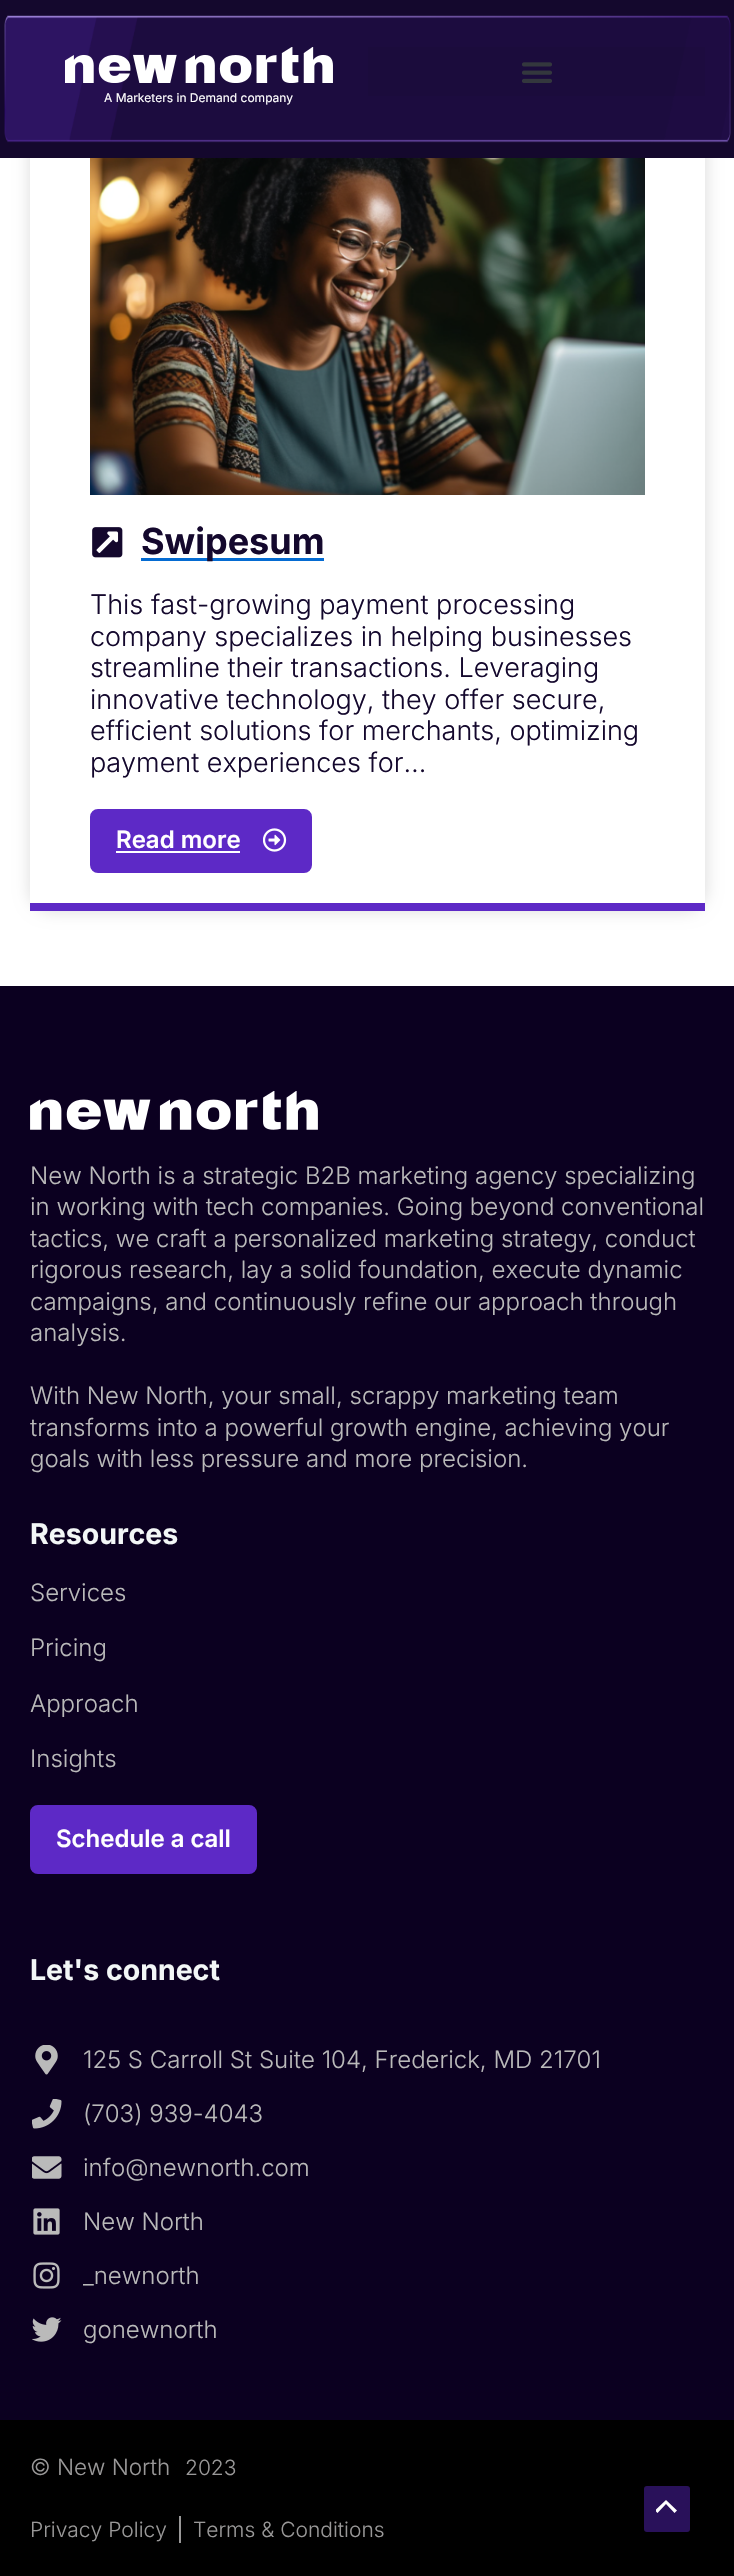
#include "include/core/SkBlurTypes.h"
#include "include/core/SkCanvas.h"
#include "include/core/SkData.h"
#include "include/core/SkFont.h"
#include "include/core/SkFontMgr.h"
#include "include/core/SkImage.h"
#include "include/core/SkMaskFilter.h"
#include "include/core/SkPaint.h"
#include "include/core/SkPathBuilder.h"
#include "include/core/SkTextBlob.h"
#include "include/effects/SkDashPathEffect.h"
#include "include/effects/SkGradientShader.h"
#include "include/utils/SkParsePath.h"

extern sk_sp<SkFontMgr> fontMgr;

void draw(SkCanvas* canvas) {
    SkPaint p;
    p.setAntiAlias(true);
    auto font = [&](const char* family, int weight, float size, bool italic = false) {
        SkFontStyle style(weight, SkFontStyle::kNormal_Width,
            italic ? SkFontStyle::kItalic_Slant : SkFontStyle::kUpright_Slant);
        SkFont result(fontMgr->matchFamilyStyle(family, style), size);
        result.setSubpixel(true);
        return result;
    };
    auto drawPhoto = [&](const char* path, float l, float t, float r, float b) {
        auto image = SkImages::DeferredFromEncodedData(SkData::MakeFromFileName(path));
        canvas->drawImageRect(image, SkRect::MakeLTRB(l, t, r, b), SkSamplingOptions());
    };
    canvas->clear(0xFFFFFFFF);
    p.setColor(0x1F000000);
    p.setMaskFilter(SkMaskFilter::MakeBlur(kNormal_SkBlurStyle, 7.5f));
    canvas->drawRoundRect(SkRect::MakeLTRB(29, 47, 707, 912), 24, 24, p);
    p.setMaskFilter(nullptr);
    p.setColor(0xFF14082D);
    canvas->drawRect(SkRect::MakeLTRB(0, 0, 734, 158), p);
    drawPhoto("media/1.png", 4, 15, 731, 143);
    p.setColor(0x0D000000);
    canvas->drawRect(SkRect::MakeLTRB(368, 47, 705, 96), p);
    drawPhoto("media/2.png", 522, 62, 552, 83);
    drawPhoto("media/3.png", 65, 47, 333, 83);
    auto font1 = font("Inter", 400, 12);
    p.setColor(0xFFFFFFFF);
    canvas->drawString("A Marketers in Demand company", 104, 102, font1, p);
    canvas->drawRect(SkRect::MakeLTRB(30, 158, 705, 903), p);
    p.setColor(0xFF5D29C6);
    canvas->drawRect(SkRect::MakeLTRB(30, 903, 705, 911), p);
    drawPhoto("media/4.png", 90, 158, 645, 495);
    drawPhoto("media/5.png", 92, 527, 123, 558);
    p.setColor(0xFF046BD2);
    canvas->drawRect(SkRect::MakeLTRB(141, 558, 324, 561), p);
    auto font2 = font("Inter", 700, 36);
    p.setColor(0xFF14082D);
    canvas->drawString("Swipesum", 141, 554, font2, p);
    auto font3 = font("Inter", 300, 27);
    {
        const struct { const char* s; float x, y; } items[] = {
            {"This fast-growing payment processing", 90, 614},
            {"company specializes in helping businesses", 90, 646},
            {"streamline their transactions. Leveraging", 90, 677},
            {"innovative technology, they offer secure,", 90, 709},
            {"efficient solutions for merchants, optimizing", 90, 740},
            {"payment experiences for…", 90, 772},
        };
        for (auto [s, x, y] : items) {
            canvas->drawString(s, x, y, font3, p);
        }
    }
    p.setColor(0xFF5D29C6);
    canvas->drawRoundRect(SkRect::MakeLTRB(91.5f, 810.5f, 310.5f, 871.5f), 6.5f, 6.5f, p);
    p.setStyle(SkPaint::kStroke_Style);
    p.setStrokeWidth(3);
    canvas->drawRoundRect(SkRect::MakeLTRB(91.5f, 810.5f, 310.5f, 871.5f), 6.5f, 6.5f, p);
    auto font4 = font("Inter", 600, 24);
    p.setStyle(SkPaint::kFill_Style);
    p.setColor(0xFFFFFFFF);
    canvas->drawString("Read more", 116, 848, font4, p);
    canvas->drawRect(SkRect::MakeLTRB(116, 851, 240, 853), p);
    drawPhoto("media/6.png", 263, 828, 287, 852);
    p.setColor(0xFF0B0020);
    canvas->drawRect(SkRect::MakeLTRB(0, 986, 734, 2420), p);
    drawPhoto("media/7.png", 30, 1091, 318, 1130);
    auto font5 = font("Inter", 300, 24);
    p.setColor(0xFFBABABA);
    {
        const struct { const char* s; float x, y; } items[] = {
            {"New North is a strategic B2B marketing agency specializing", 30, 1184},
            {"in working with tech companies. Going beyond conventional", 30, 1215},
            {"tactics, we craft a personalized marketing strategy, conduct", 30, 1247},
            {"rigorous research, lay a solid foundation, execute dynamic", 30, 1278},
            {"campaigns, and continuously refine our approach through", 30, 1310},
            {"analysis.", 30, 1341},
            {"With New North, your small, scrappy marketing team", 30, 1404},
            {"transforms into a powerful growth engine, achieving your", 30, 1436},
            {"goals with less pressure and more precision.", 30, 1467},
        };
        for (auto [s, x, y] : items) {
            canvas->drawString(s, x, y, font5, p);
        }
    }
    auto font6 = font("Inter", 700, 28.5f);
    p.setColor(0xFFF3F7F7);
    canvas->drawString("Resources", 30, 1544, font6, p);
    p.setColor(0xFFBABABA);
    {
        const struct { const char* s; float x, y; } items[] = {
            {"Services", 30, 1601},
            {"Pricing", 30, 1656},
            {"Approach", 30, 1712},
            {"Insights", 30, 1767},
        };
        for (auto [s, x, y] : items) {
            canvas->drawString(s, x, y, font5, p);
        }
    }
    p.setColor(0xFF5D29C6);
    canvas->drawRoundRect(SkRect::MakeLTRB(31.5f, 1806.5f, 255.5f, 1872.5f), 6.5f, 6.5f, p);
    p.setStyle(SkPaint::kStroke_Style);
    canvas->drawRoundRect(SkRect::MakeLTRB(31.5f, 1806.5f, 255.5f, 1872.5f), 6.5f, 6.5f, p);
    p.setStyle(SkPaint::kFill_Style);
    p.setColor(0xFFFFFFFF);
    canvas->drawString("Schedule a call", 56, 1847, font4, p);
    p.setColor(0xFFF3F7F7);
    canvas->drawString("Let's connect", 30, 1980, font6, p);
    drawPhoto("media/8.png", 35, 2045, 58, 2075);
    p.setColor(0xFFBABABA);
    canvas->drawString("125 S Carroll St Suite 104, Frederick, MD 21701", 83, 2068, font5, p);
    drawPhoto("media/9.png", 32, 2099, 62, 2129);
    canvas->drawString("(703) 939-4043", 83, 2122, font5, p);
    drawPhoto("media/10.png", 32, 2156, 62, 2179);
    canvas->drawString("info@newnorth.com", 83, 2176, font5, p);
    drawPhoto("media/11.png", 33, 2208, 60, 2235);
    canvas->drawString("New North", 83, 2230, font5, p);
    drawPhoto("media/12.png", 33, 2262, 60, 2289);
    canvas->drawString("_newnorth", 83, 2284, font5, p);
    drawPhoto("media/13.png", 32, 2317, 62, 2342);
    canvas->drawString("gonewnorth", 83, 2338, font5, p);
    p.setColor(0xFF000000);
    canvas->drawRect(SkRect::MakeLTRB(0, 2420, 734, 2576), p);
    auto font7 = font("Inter", 300, 22.5f);
    p.setColor(0xFF999898);
    canvas->drawString("© New North", 30, 2475, font7, p);
    auto font8 = font("Inter", 300, 21);
    canvas->drawString("2023", 185, 2475, font8, p);
    canvas->drawString("Privacy Policy", 30, 2537, font8, p);
    canvas->drawRect(SkRect::MakeLTRB(179, 2516, 181, 2543), p);
    canvas->drawString("Terms & Conditions", 193, 2537, font8, p);
    p.setColor(0xFF29115A);
    canvas->drawRoundRect(SkRect::MakeLTRB(644, 2486, 690, 2532), 3, 3, p);
    canvas->save();
    canvas->clipRect(SkRect::MakeLTRB(656, 2496, 678, 2516));
    p.setColor(0xFFFFFFFF);
    canvas->drawPath(SkPathBuilder().moveTo(677, 2510.5f).lineTo(666, 2500).lineTo(655, 2510.5f).lineTo(657.5f, 2513).lineTo(666, 2504).lineTo(674.5f, 2513).close().detach(), p);
    canvas->restore();
}
